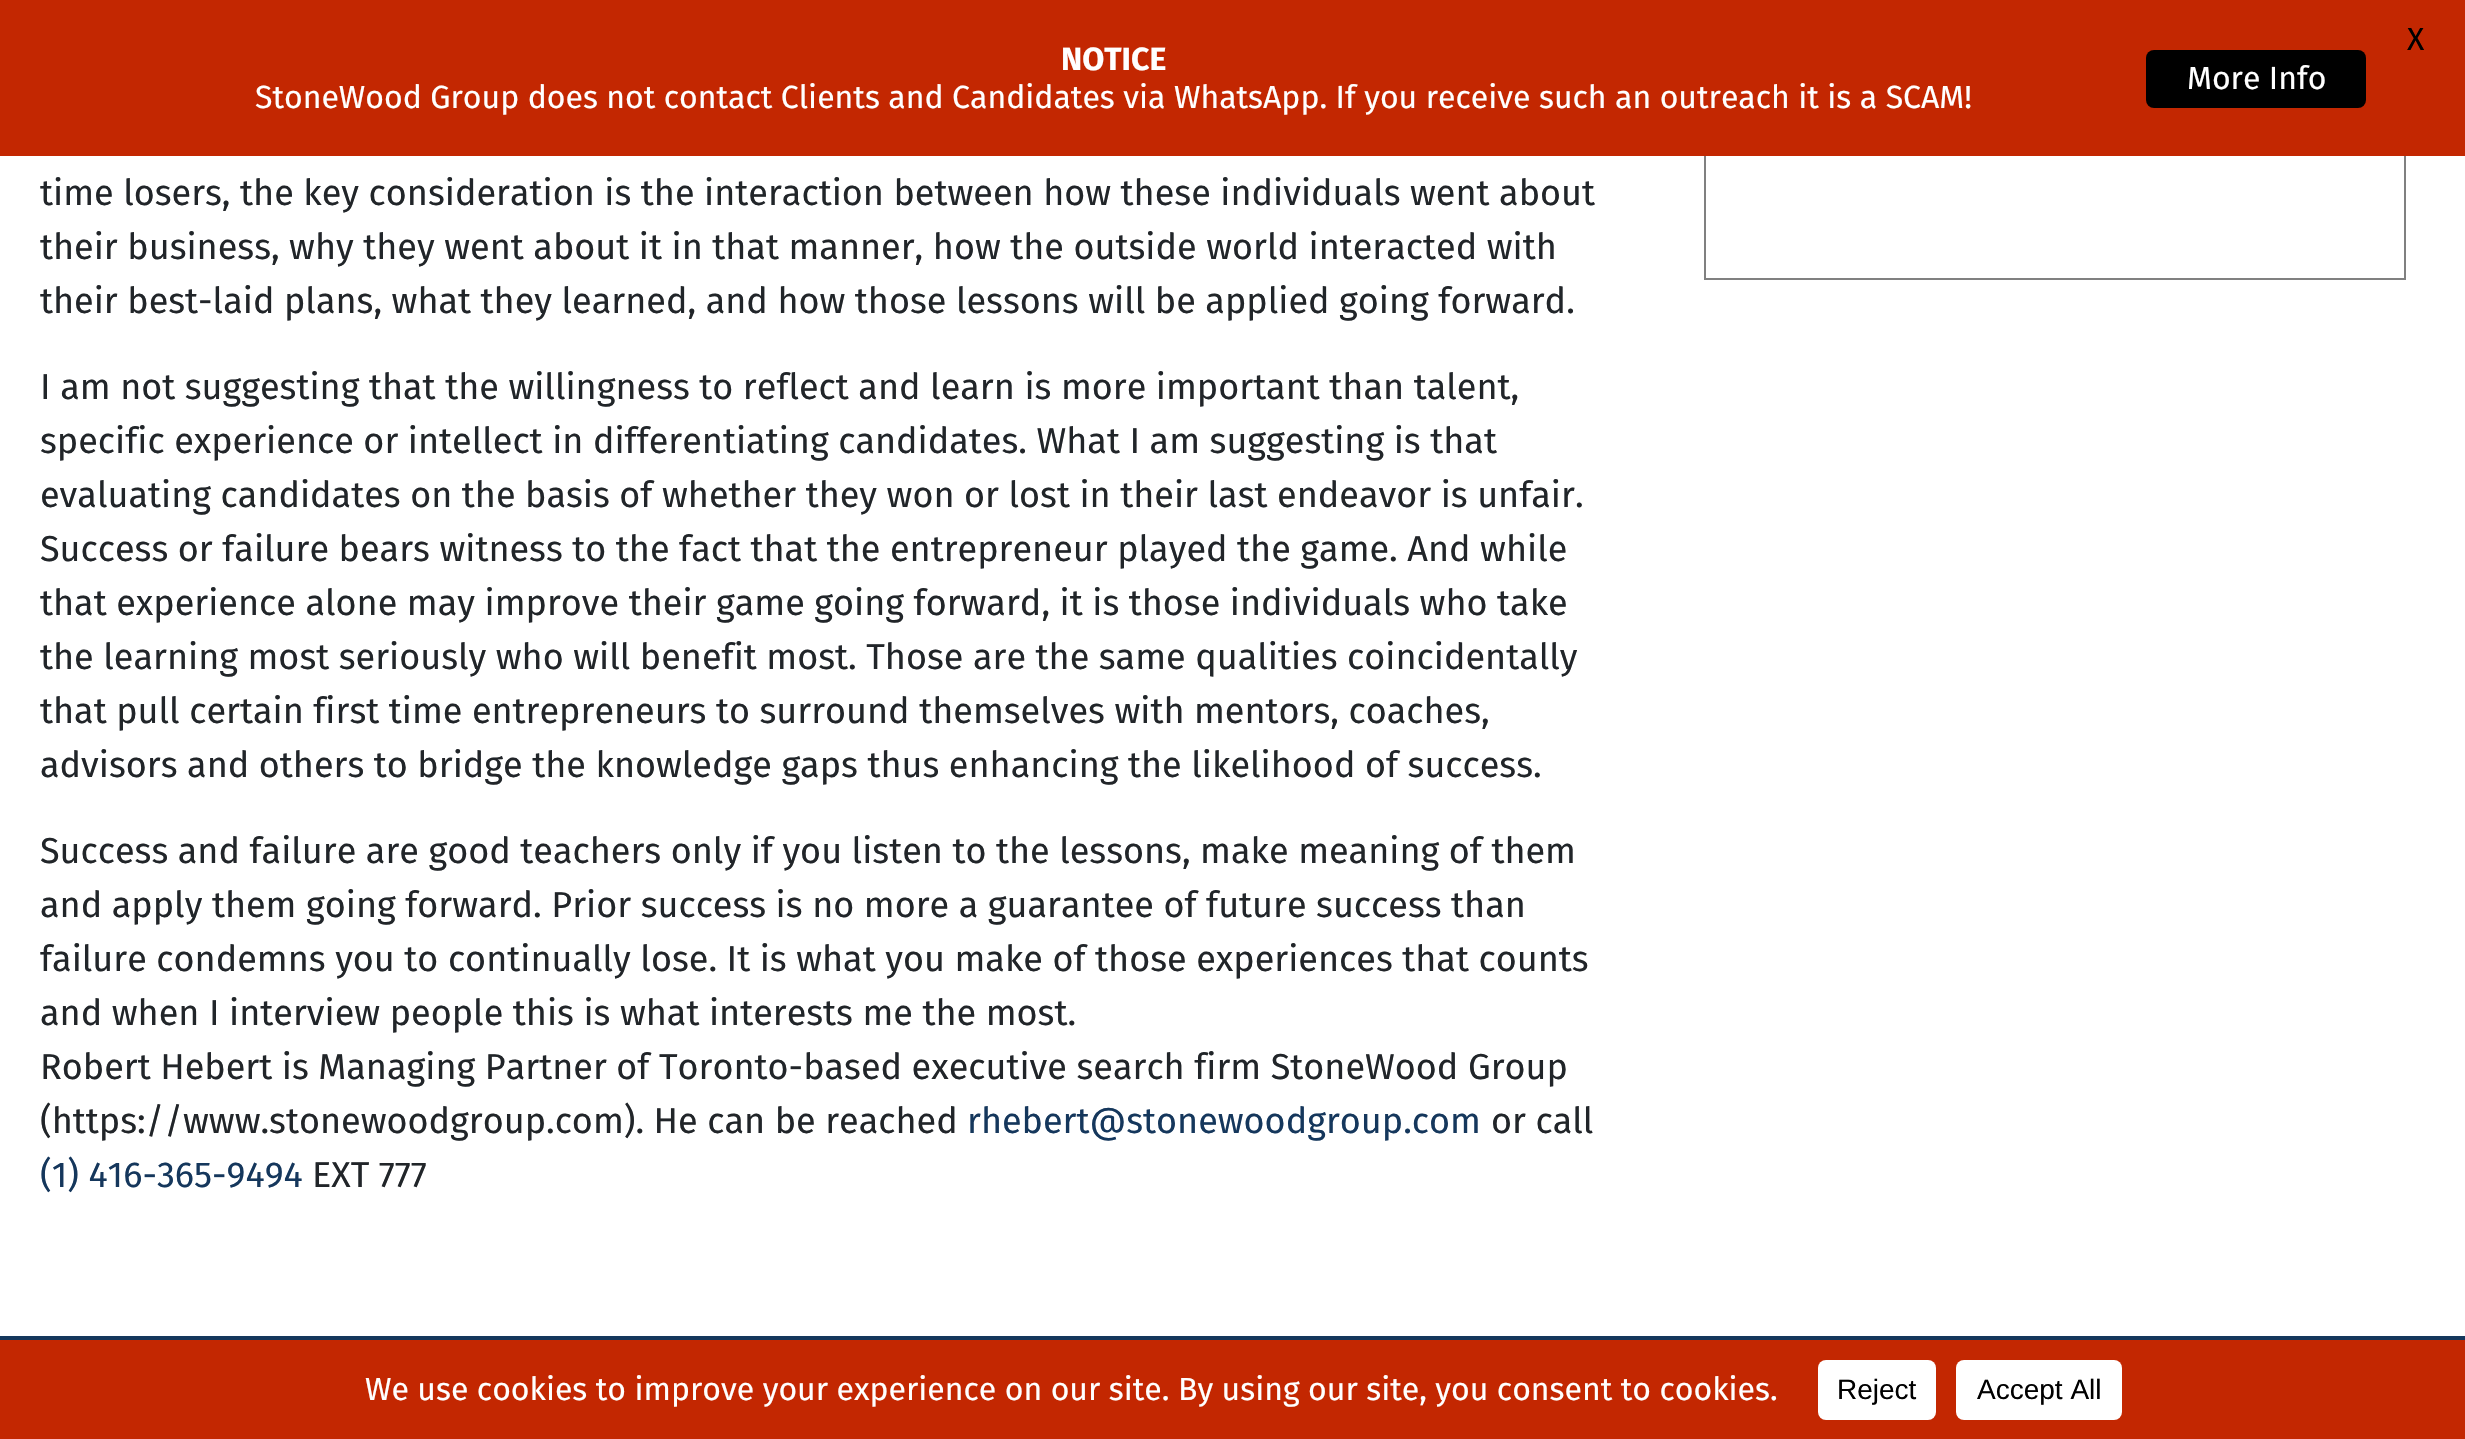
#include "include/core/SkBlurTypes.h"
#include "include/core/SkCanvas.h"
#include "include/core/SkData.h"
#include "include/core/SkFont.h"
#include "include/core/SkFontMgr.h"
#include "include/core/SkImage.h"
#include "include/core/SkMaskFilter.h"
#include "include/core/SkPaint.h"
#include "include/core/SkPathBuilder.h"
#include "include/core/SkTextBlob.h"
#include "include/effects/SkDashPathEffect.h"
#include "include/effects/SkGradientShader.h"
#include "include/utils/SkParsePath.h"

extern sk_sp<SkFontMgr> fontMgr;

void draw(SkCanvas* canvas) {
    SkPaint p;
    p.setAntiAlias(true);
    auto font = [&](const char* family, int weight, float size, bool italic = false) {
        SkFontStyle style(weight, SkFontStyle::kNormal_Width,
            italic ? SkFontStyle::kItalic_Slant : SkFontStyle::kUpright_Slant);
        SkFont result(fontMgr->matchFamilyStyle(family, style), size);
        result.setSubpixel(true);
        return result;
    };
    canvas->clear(0xFFFFFFFF);
    p.setStyle(SkPaint::kStroke_Style);
    p.setStrokeWidth(2);
    p.setColor(0xFF808080);
    canvas->drawRect(SkRect::MakeLTRB(1705, -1, 2405, 279), p);
    p.setStyle(SkPaint::kFill_Style);
    p.setColor(0xFFC32701);
    canvas->drawRect(SkRect::MakeLTRB(0, 0, 2465, 156), p);
    auto font1 = font("Fira Sans", 400, 32);
    p.setColor(0xFF000000);
    canvas->drawString("X", 2407, 50, font1, p);
    auto font2 = font("Fira Sans", 700, 32);
    p.setColor(0xFFFFFFFF);
    canvas->drawString("NOTICE", 1061, 70, font2, p);
    canvas->drawString("StoneWood Group does not contact Clients and Candidates via WhatsApp. If you receive such an outreach it is a SCAM!", 255, 108, font1, p);
    p.setColor(0xFF000000);
    canvas->drawRoundRect(SkRect::MakeLTRB(2146, 50, 2366, 108), 8, 8, p);
    p.setColor(0xFFFFFFFF);
    canvas->drawString("More Info", 2187, 89, font1, p);
    auto font3 = font("Fira Sans", 400, 36);
    p.setColor(0xFF212529);
    {
        const struct { const char* s; float x, y; } items[] = {
            {"time losers, the key consideration is the interaction between how these individuals went about", 40, 205},
            {"their business, why they went about it in that manner, how the outside world interacted with", 40, 259},
            {"their best-laid plans, what they learned, and how those lessons will be applied going forward.", 40, 313},
            {"I am not suggesting that the willingness to reflect and learn is more important than talent,", 40, 399},
            {"specific experience or intellect in differentiating candidates. What I am suggesting is that", 40, 453},
            {"evaluating candidates on the basis of whether they won or lost in their last endeavor is unfair.", 40, 507},
            {"Success or failure bears witness to the fact that the entrepreneur played the game. And while", 40, 561},
            {"that experience alone may improve their game going forward, it is those individuals who take", 40, 615},
            {"the learning most seriously who will benefit most. Those are the same qualities coincidentally", 40, 669},
            {"that pull certain first time entrepreneurs to surround themselves with mentors, coaches,", 40, 723},
            {"advisors and others to bridge the knowledge gaps thus enhancing the likelihood of success.", 40, 777},
            {"Success and failure are good teachers only if you listen to the lessons, make meaning of them", 40, 863},
            {"and apply them going forward. Prior success is no more a guarantee of future success than", 40, 917},
            {"failure condemns you to continually lose. It is what you make of those experiences that counts", 40, 971},
            {"and when I interview people this is what interests me the most.", 40, 1025},
            {"Robert Hebert is Managing Partner of Toronto-based executive search firm StoneWood Group", 40, 1079},
            {"(https://www.stonewoodgroup.com). He can be reached", 40, 1133},
        };
        for (auto [s, x, y] : items) {
            canvas->drawString(s, x, y, font3, p);
        }
    }
    p.setColor(0xFF15375C);
    canvas->drawString("rhebert@stonewoodgroup.com", 967, 1133, font3, p);
    p.setColor(0xFF212529);
    canvas->drawString("or call", 1491, 1133, font3, p);
    p.setColor(0xFF15375C);
    canvas->drawString("(1) 416-365-9494", 40, 1187, font3, p);
    p.setColor(0xFF212529);
    canvas->drawString("EXT 777", 312, 1187, font3, p);
    p.setColor(0xFF15375C);
    canvas->drawRect(SkRect::MakeLTRB(0, 1336, 2465, 1340), p);
    p.setColor(0xFFC32701);
    canvas->drawRect(SkRect::MakeLTRB(0, 1340, 2465, 1439), p);
    p.setColor(0xFFFFFFFF);
    canvas->drawString("We use cookies to improve your experience on our site. By using our site, you consent to cookies.", 365, 1400, font1, p);
    canvas->drawRoundRect(SkRect::MakeLTRB(1818, 1360, 1936, 1420), 8, 8, p);
    auto font4 = font("Liberation Sans", 400, 28);
    p.setColor(0xFF000000);
    canvas->drawString("Reject", 1837, 1399, font4, p);
    p.setColor(0xFFFFFFFF);
    canvas->drawRoundRect(SkRect::MakeLTRB(1956, 1360, 2122, 1420), 8, 8, p);
    p.setColor(0xFF000000);
    canvas->drawString("Accept All", 1977, 1399, font4, p);
}
